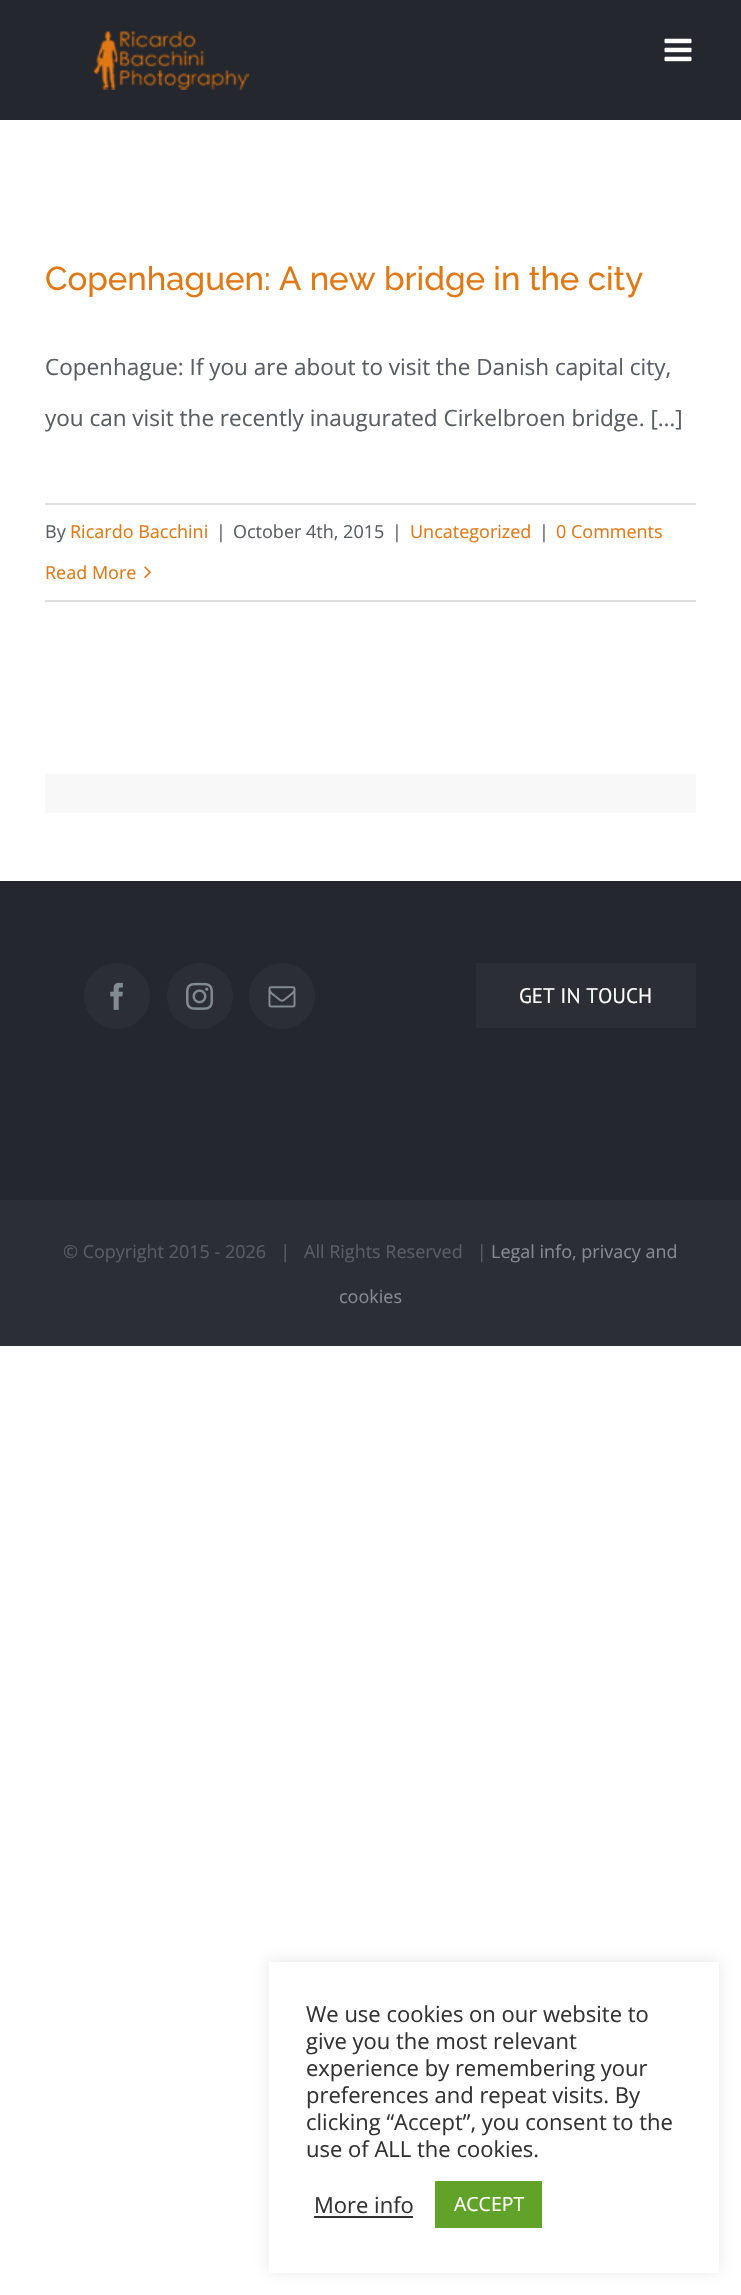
#include "include/core/SkBlurTypes.h"
#include "include/core/SkCanvas.h"
#include "include/core/SkData.h"
#include "include/core/SkFont.h"
#include "include/core/SkFontMgr.h"
#include "include/core/SkImage.h"
#include "include/core/SkMaskFilter.h"
#include "include/core/SkPaint.h"
#include "include/core/SkPathBuilder.h"
#include "include/core/SkTextBlob.h"
#include "include/effects/SkDashPathEffect.h"
#include "include/effects/SkGradientShader.h"
#include "include/utils/SkParsePath.h"

extern sk_sp<SkFontMgr> fontMgr;

void draw(SkCanvas* canvas) {
    SkPaint p;
    p.setAntiAlias(true);
    auto font = [&](const char* family, int weight, float size, bool italic = false) {
        SkFontStyle style(weight, SkFontStyle::kNormal_Width,
            italic ? SkFontStyle::kItalic_Slant : SkFontStyle::kUpright_Slant);
        SkFont result(fontMgr->matchFamilyStyle(family, style), size);
        result.setSubpixel(true);
        return result;
    };
    auto drawPhoto = [&](const char* path, float l, float t, float r, float b) {
        auto image = SkImages::DeferredFromEncodedData(SkData::MakeFromFileName(path));
        canvas->drawImageRect(image, SkRect::MakeLTRB(l, t, r, b), SkSamplingOptions());
    };
    canvas->clear(0xFFFFFFFF);
    p.setColor(0xFF24272D);
    canvas->drawRect(SkRect::MakeLTRB(0, 0, 741, 120), p);
    drawPhoto("media/1.png", 92, 31, 250, 90);
    drawPhoto("media/2.png", 664, 38, 692, 62);
    auto font1 = font("Raleway", 100, 33);
    p.setColor(0xFFE07815);
    canvas->drawString("Copenhaguen: A new bridge in the city", 45, 290, font1, p);
    auto font2 = font("Open Sans", 400, 22.5f);
    p.setColor(0xFF5A5D62);
    canvas->drawString("Copenhague: If you are about to visit the Danish capital city,", 45, 375, font2, p);
    canvas->drawString("you can visit the recently inaugurated Cirkelbroen bridge. […]", 45, 426, font2, p);
    p.setColor(0xFFE0DEDE);
    canvas->drawRect(SkRect::MakeLTRB(45, 503, 696, 505), p);
    canvas->drawRect(SkRect::MakeLTRB(45, 600, 696, 602), p);
    auto font3 = font("Open Sans", 400, 18);
    p.setColor(0xFF5A5D62);
    canvas->drawString("By", 45, 538, font3, p);
    p.setColor(0xFFE07815);
    canvas->drawString("Ricardo Bacchini", 70, 538, font3, p);
    p.setColor(0xFF5A5D62);
    {
        const struct { const char* s; float x, y; } items[] = {
            {"|", 216, 538},
            {"October 4th, 2015", 233, 538},
            {"|", 392, 538},
        };
        for (auto [s, x, y] : items) {
            canvas->drawString(s, x, y, font3, p);
        }
    }
    p.setColor(0xFFE07815);
    canvas->drawString("Uncategorized", 410, 538, font3, p);
    p.setColor(0xFF5A5D62);
    canvas->drawString("|", 539, 538, font3, p);
    p.setColor(0xFFE07815);
    canvas->drawString("0 Comments", 556, 538, font3, p);
    canvas->drawString("Read More", 45, 579, font3, p);
    drawPhoto("media/3.png", 144, 566, 151, 578);
    p.setColor(0xFFF8F8F8);
    canvas->drawRect(SkRect::MakeLTRB(45, 774, 696, 813), p);
    p.setColor(0xFF24272D);
    canvas->drawRect(SkRect::MakeLTRB(0, 881, 741, 1200), p);
    p.setColor(0xFF2B2E35);
    canvas->drawCircle(117, 996, 33, p);
    drawPhoto("media/4.png", 110, 982, 123, 1010);
    canvas->drawCircle(200, 996, 33, p);
    drawPhoto("media/5.png", 186, 982, 213, 1010);
    canvas->drawCircle(282, 996, 33, p);
    drawPhoto("media/6.png", 268, 986, 296, 1008);
    canvas->drawRect(SkRect::MakeLTRB(476, 963, 696, 1028), p);
    auto font4 = font("PT Sans", 400, 21);
    p.setColor(0xFFFFFFFF);
    canvas->drawString("GET IN TOUCH", 519, 1003, font4, p);
    p.setColor(0xFF2B2E35);
    canvas->drawRect(SkRect::MakeLTRB(0, 1200, 741, 1346), p);
    p.setColor(0xFF5A5D62);
    canvas->drawString("© Copyright 2015 - 2026   |   All Rights Reserved   |", 63, 1258, font3, p);
    p.setColor(0xFF868A92);
    canvas->drawString("Legal info, privacy and", 491, 1258, font3, p);
    canvas->drawString("cookies", 339, 1303, font3, p);
    p.setColor(0x4DACABAB);
    p.setMaskFilter(SkMaskFilter::MakeBlur(kNormal_SkBlurStyle, 7.5f));
    canvas->drawRect(SkRect::MakeLTRB(269, 1961, 719, 2271), p);
    p.setMaskFilter(nullptr);
    p.setColor(0xFFFFFFFF);
    canvas->drawRect(SkRect::MakeLTRB(269, 1962, 719, 2273), p);
    auto font5 = font("Open Sans", 400, 22);
    p.setColor(0xFF333333);
    {
        const struct { const char* s; float x, y; } items[] = {
            {"We use cookies on our website to", 306, 2022},
            {"give you the most relevant", 306, 2049},
            {"experience by remembering your", 306, 2076},
            {"preferences and repeat visits. By", 306, 2103},
            {"clicking “Accept”, you consent to the", 306, 2130},
            {"use of ALL the cookies.", 306, 2157},
            {"More info", 314, 2213},
        };
        for (auto [s, x, y] : items) {
            canvas->drawString(s, x, y, font5, p);
        }
    }
    canvas->drawRect(SkRect::MakeLTRB(314, 2216, 413, 2218), p);
    p.setColor(0xFF61A229);
    canvas->drawRect(SkRect::MakeLTRB(435, 2181, 542, 2228), p);
    auto font6 = font("Open Sans", 400, 19.5f);
    p.setColor(0xFFFFFFFF);
    canvas->drawString("ACCEPT", 454, 2211, font6, p);
}
